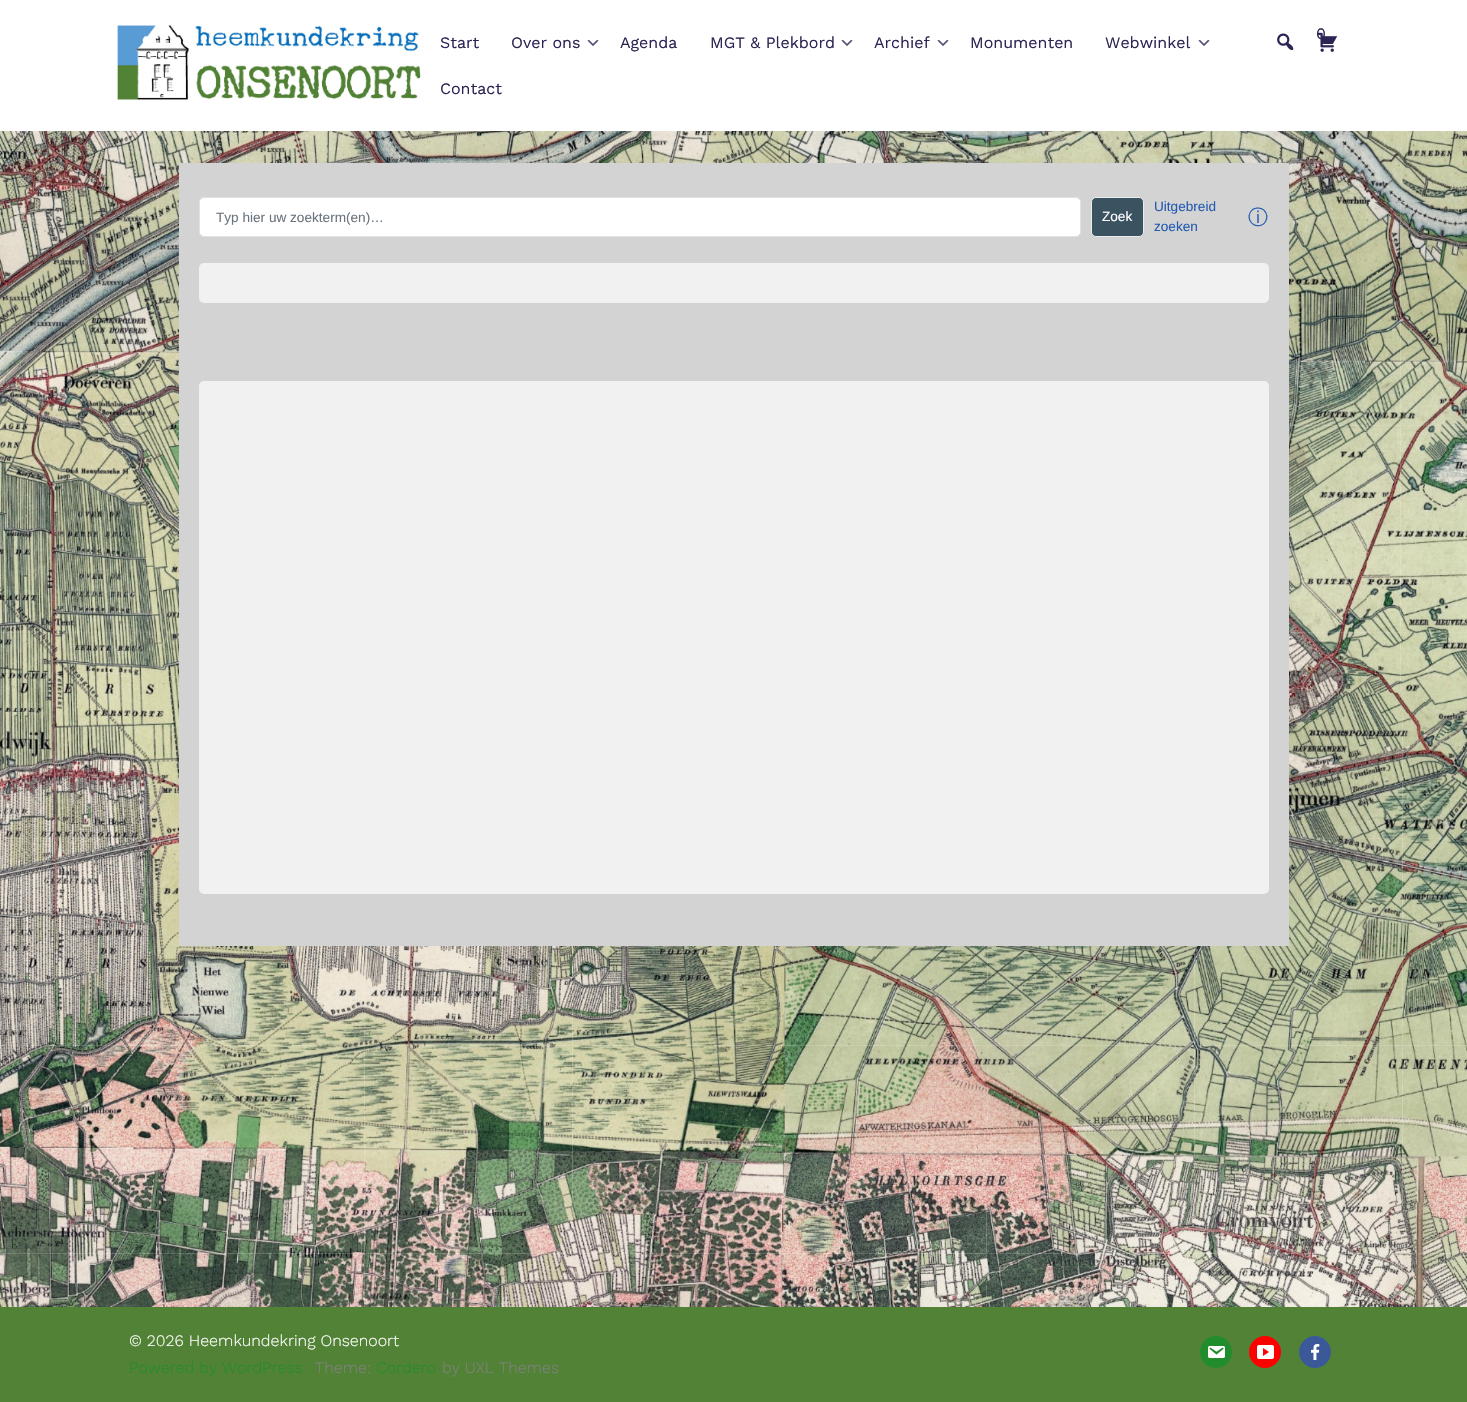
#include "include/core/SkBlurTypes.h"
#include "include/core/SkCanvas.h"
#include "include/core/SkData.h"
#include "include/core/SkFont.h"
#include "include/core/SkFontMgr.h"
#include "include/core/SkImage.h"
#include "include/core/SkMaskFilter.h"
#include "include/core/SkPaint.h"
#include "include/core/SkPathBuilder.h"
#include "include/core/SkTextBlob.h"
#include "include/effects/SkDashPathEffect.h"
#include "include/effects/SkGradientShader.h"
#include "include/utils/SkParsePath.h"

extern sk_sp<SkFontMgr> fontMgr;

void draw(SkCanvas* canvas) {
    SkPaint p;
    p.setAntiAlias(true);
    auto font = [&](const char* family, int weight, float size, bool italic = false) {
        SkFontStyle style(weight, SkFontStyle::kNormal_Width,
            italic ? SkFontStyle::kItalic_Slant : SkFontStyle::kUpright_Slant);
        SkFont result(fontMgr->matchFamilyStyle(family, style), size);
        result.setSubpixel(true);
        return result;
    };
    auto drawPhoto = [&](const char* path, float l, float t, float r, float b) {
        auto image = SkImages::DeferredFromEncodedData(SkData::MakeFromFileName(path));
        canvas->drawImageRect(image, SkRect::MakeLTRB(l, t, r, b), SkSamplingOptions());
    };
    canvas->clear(0xFFFFFFFF);
    drawPhoto("media/1.png", 0, 131, 1467, 1307);
    drawPhoto("media/2.png", 117, 25, 421, 100);
    drawPhoto("media/3.png", 1277, 33, 1294, 51);
    drawPhoto("media/4.png", 1317, 32, 1338, 52);
    auto font1 = font("Work Sans", 400, 16);
    p.setColor(0xFF2D2354);
    {
        const struct { const char* s; float x, y; } items[] = {
            {"0", 1316, 39},
            {"Start", 440, 48},
            {"Over ons", 511, 48},
        };
        for (auto [s, x, y] : items) {
            canvas->drawString(s, x, y, font1, p);
        }
    }
    drawPhoto("media/5.png", 587, 39, 599, 46);
    canvas->drawString("Agenda", 620, 48, font1, p);
    canvas->drawString("MGT & Plekbord", 710, 48, font1, p);
    drawPhoto("media/5.png", 841, 39, 853, 46);
    canvas->drawString("Archief", 874, 48, font1, p);
    drawPhoto("media/5.png", 937, 39, 949, 46);
    canvas->drawString("Monumenten", 970, 48, font1, p);
    canvas->drawString("Webwinkel", 1105, 48, font1, p);
    drawPhoto("media/5.png", 1198, 39, 1210, 46);
    canvas->drawString("Contact", 440, 94, font1, p);
    p.setColor(0xFFD3D3D3);
    canvas->drawRect(SkRect::MakeLTRB(179, 163, 1289, 946), p);
    p.setColor(0xFFFFFFFF);
    canvas->drawRoundRect(SkRect::MakeLTRB(199.5f, 197.5f, 1080.5f, 236.5f), 4.5f, 4.5f, p);
    p.setStyle(SkPaint::kStroke_Style);
    p.setStrokeWidth(1);
    p.setColor(0xFFE1E1E1);
    canvas->drawRoundRect(SkRect::MakeLTRB(199.5f, 197.5f, 1080.5f, 236.5f), 4.5f, 4.5f, p);
    auto font2 = font("Liberation Sans", 400, 13.6f);
    p.setStyle(SkPaint::kFill_Style);
    p.setColor(0xFF6C757D);
    canvas->drawString("Typ hier uw zoekterm(en)…", 216, 222, font2, p);
    p.setColor(0xFF3B5261);
    canvas->drawRoundRect(SkRect::MakeLTRB(1091.5f, 197.5f, 1143.5f, 236.5f), 4.5f, 4.5f, p);
    p.setStyle(SkPaint::kStroke_Style);
    p.setColor(0xFFE9ECEF);
    canvas->drawRoundRect(SkRect::MakeLTRB(1091.5f, 197.5f, 1143.5f, 236.5f), 4.5f, 4.5f, p);
    p.setStyle(SkPaint::kFill_Style);
    p.setColor(0xFFFFFFFF);
    canvas->drawString("Zoek", 1102, 221, font2, p);
    p.setColor(0xFF235BB0);
    canvas->drawString("Uitgebreid", 1154, 211, font2, p);
    canvas->drawString("zoeken", 1154, 231, font2, p);
    auto font3 = font("WenQuanYi Zen Hei", 500, 20);
    canvas->drawString("ⓘ", 1248, 224, font3, p);
    p.setColor(0xFFF1F1F1);
    canvas->drawRoundRect(SkRect::MakeLTRB(199, 263, 1269, 303), 5, 5, p);
    canvas->drawRoundRect(SkRect::MakeLTRB(199, 381, 1269, 894), 5, 5, p);
    p.setColor(0xFF528236);
    canvas->drawRect(SkRect::MakeLTRB(0, 1307, 1467, 1402), p);
    auto font4 = font("Work Sans", 300, 16);
    p.setColor(0xFFFFFFFF);
    canvas->drawString("© 2026 Heemkundekring Onsenoort", 129, 1346, font4, p);
    p.setColor(0xFF208C2C);
    canvas->drawString("Powered by WordPress", 129, 1373, font4, p);
    p.setColor(0xFF808080);
    canvas->drawString("Theme:", 315, 1373, font4, p);
    p.setColor(0xFF208C2C);
    canvas->drawString("Cordero", 376, 1373, font4, p);
    p.setColor(0xFF808080);
    canvas->drawString("by UXL Themes", 442, 1373, font4, p);
    p.setColor(0xFF208C2C);
    canvas->drawCircle(1216, 1352, 16, p);
    drawPhoto("media/6.png", 1208, 1346, 1225, 1358);
    p.setColor(0xFFFF0000);
    canvas->drawCircle(1265, 1352, 16, p);
    drawPhoto("media/7.png", 1257, 1345, 1274, 1359);
    p.setColor(0xFF3B5998);
    canvas->drawCircle(1315, 1352, 16, p);
    drawPhoto("media/8.png", 1311, 1344, 1320, 1360);
}
